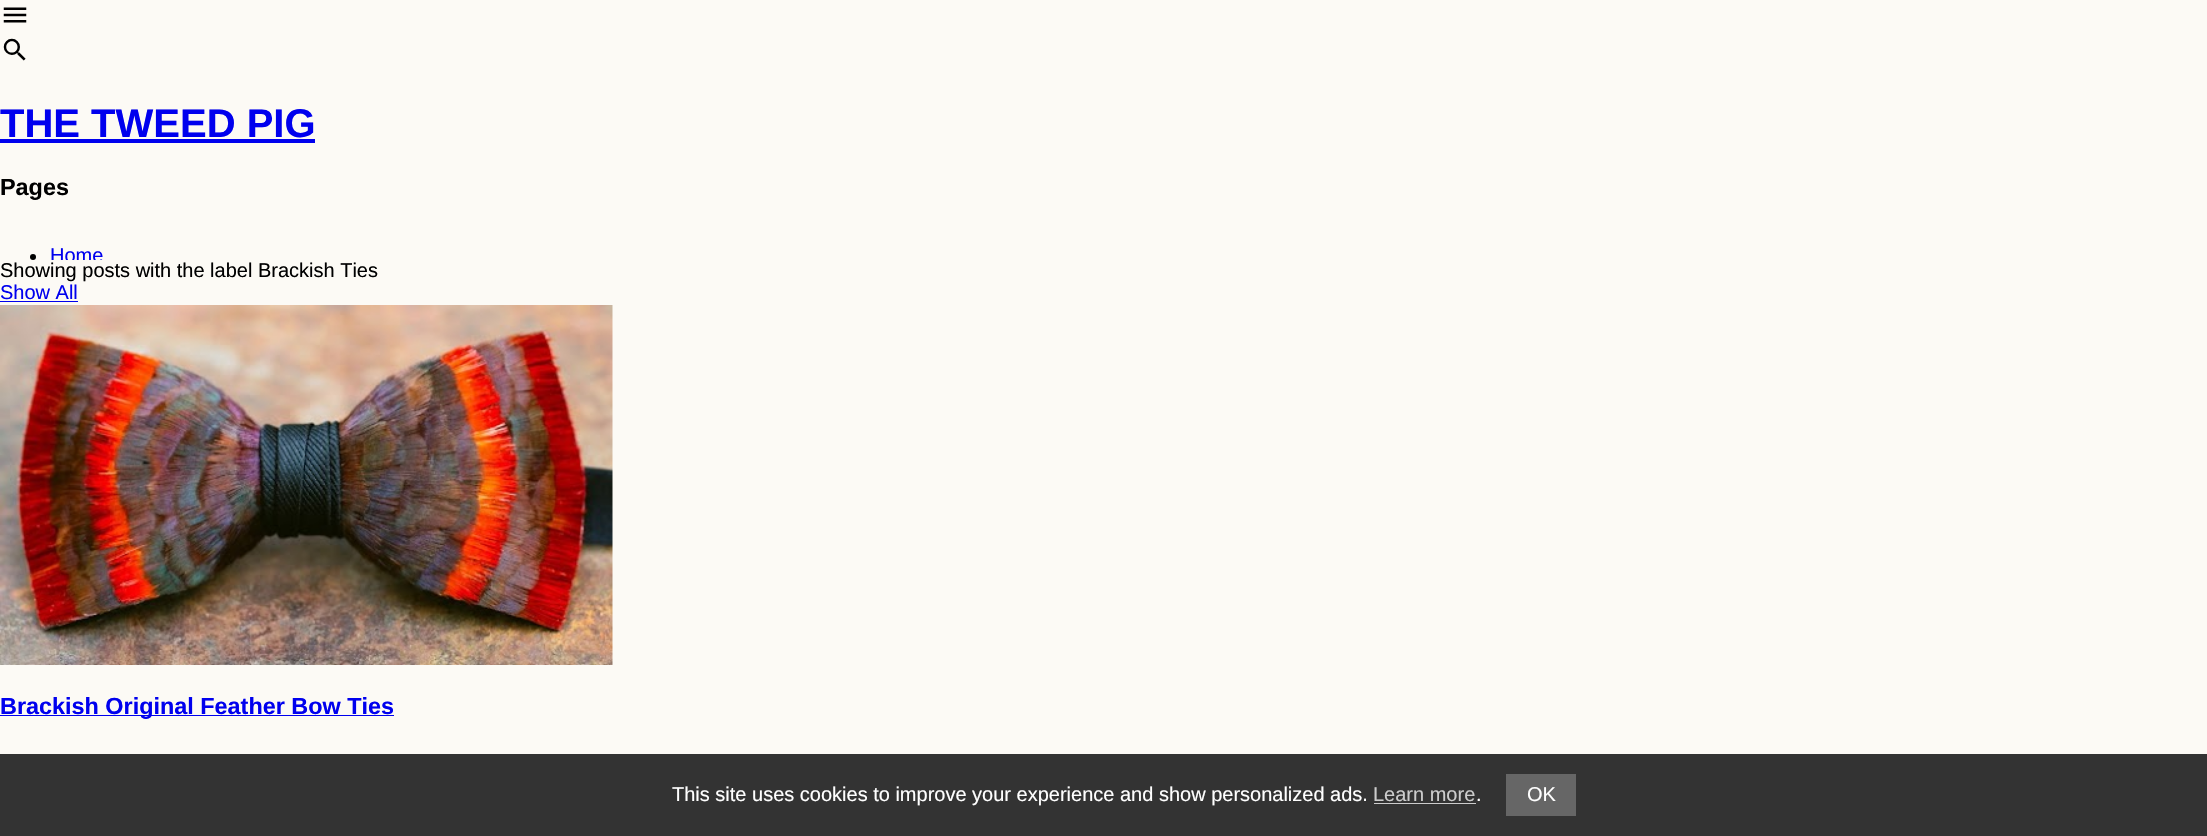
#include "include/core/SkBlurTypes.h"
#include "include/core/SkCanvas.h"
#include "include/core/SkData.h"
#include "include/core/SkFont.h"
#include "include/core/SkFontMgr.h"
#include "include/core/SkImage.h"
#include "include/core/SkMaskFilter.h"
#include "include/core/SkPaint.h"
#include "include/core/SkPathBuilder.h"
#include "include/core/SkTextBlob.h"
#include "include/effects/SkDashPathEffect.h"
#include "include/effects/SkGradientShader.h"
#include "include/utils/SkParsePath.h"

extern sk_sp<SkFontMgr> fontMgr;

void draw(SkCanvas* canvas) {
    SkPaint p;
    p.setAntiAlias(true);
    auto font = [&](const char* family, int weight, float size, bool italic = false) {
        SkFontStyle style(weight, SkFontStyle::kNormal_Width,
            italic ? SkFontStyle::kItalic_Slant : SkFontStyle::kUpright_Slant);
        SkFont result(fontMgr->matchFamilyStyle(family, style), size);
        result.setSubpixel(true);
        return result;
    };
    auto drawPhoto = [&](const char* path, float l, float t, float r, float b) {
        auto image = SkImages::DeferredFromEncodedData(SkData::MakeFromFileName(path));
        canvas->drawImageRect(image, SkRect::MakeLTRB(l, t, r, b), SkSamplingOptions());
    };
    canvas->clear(0xFFFCFAF5);
    drawPhoto("media/1.png", 3, 7, 27, 23);
    drawPhoto("media/2.png", 3, 38, 26, 61);
    auto font1 = font("Liberation Sans", 700, 40);
    p.setColor(0xFF0000EE);
    canvas->drawString("THE TWEED PIG", 0, 137, font1, p);
    canvas->drawRect(SkRect::MakeLTRB(0, 139, 315, 143), p);
    auto font2 = font("Liberation Sans", 700, 23.4f);
    p.setColor(0xFF000000);
    canvas->drawString("Pages", 0, 195, font2, p);
    canvas->drawCircle(33, 257, 3, p);
    canvas->save();
    canvas->clipRect(SkRect::MakeLTRB(0, 225, 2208, 260));
    auto font3 = font("Liberation Sans", 400, 20);
    p.setColor(0xFF0000EE);
    canvas->drawString("Home", 50, 262, font3, p);
    canvas->restore();
    p.setColor(0xFF000000);
    canvas->drawString("Showing posts with the label Brackish Ties", 0, 277, font3, p);
    p.setColor(0xFF0000EE);
    canvas->drawString("Show All", 0, 299, font3, p);
    canvas->drawRect(SkRect::MakeLTRB(0, 301, 78, 302), p);
    drawPhoto("media/3.png", 0, 305, 613, 665);
    canvas->drawRect(SkRect::MakeLTRB(0, 715, 394, 716), p);
    canvas->drawString("Brackish Original Feather Bow Ties", 0, 714, font2, p);
    p.setColor(0xFF333333);
    canvas->drawRect(SkRect::MakeLTRB(0, 754, 2207, 836), p);
    p.setColor(0xFFFFFFFF);
    canvas->drawString("This site uses cookies to improve your experience and show personalized ads.", 672, 801, font3, p);
    p.setColor(0xFFCCCCCC);
    canvas->drawString("Learn more", 1373, 801, font3, p);
    p.setColor(0xFFFFFFFF);
    canvas->drawString(".", 1476, 801, font3, p);
    p.setColor(0xFFCCCCCC);
    canvas->drawRect(SkRect::MakeLTRB(1374, 803, 1476, 804), p);
    p.setColor(0xFF666666);
    canvas->drawRect(SkRect::MakeLTRB(1506, 774, 1576, 816), p);
    p.setColor(0xFFFFFFFF);
    canvas->drawString("OK", 1527, 801, font3, p);
}
